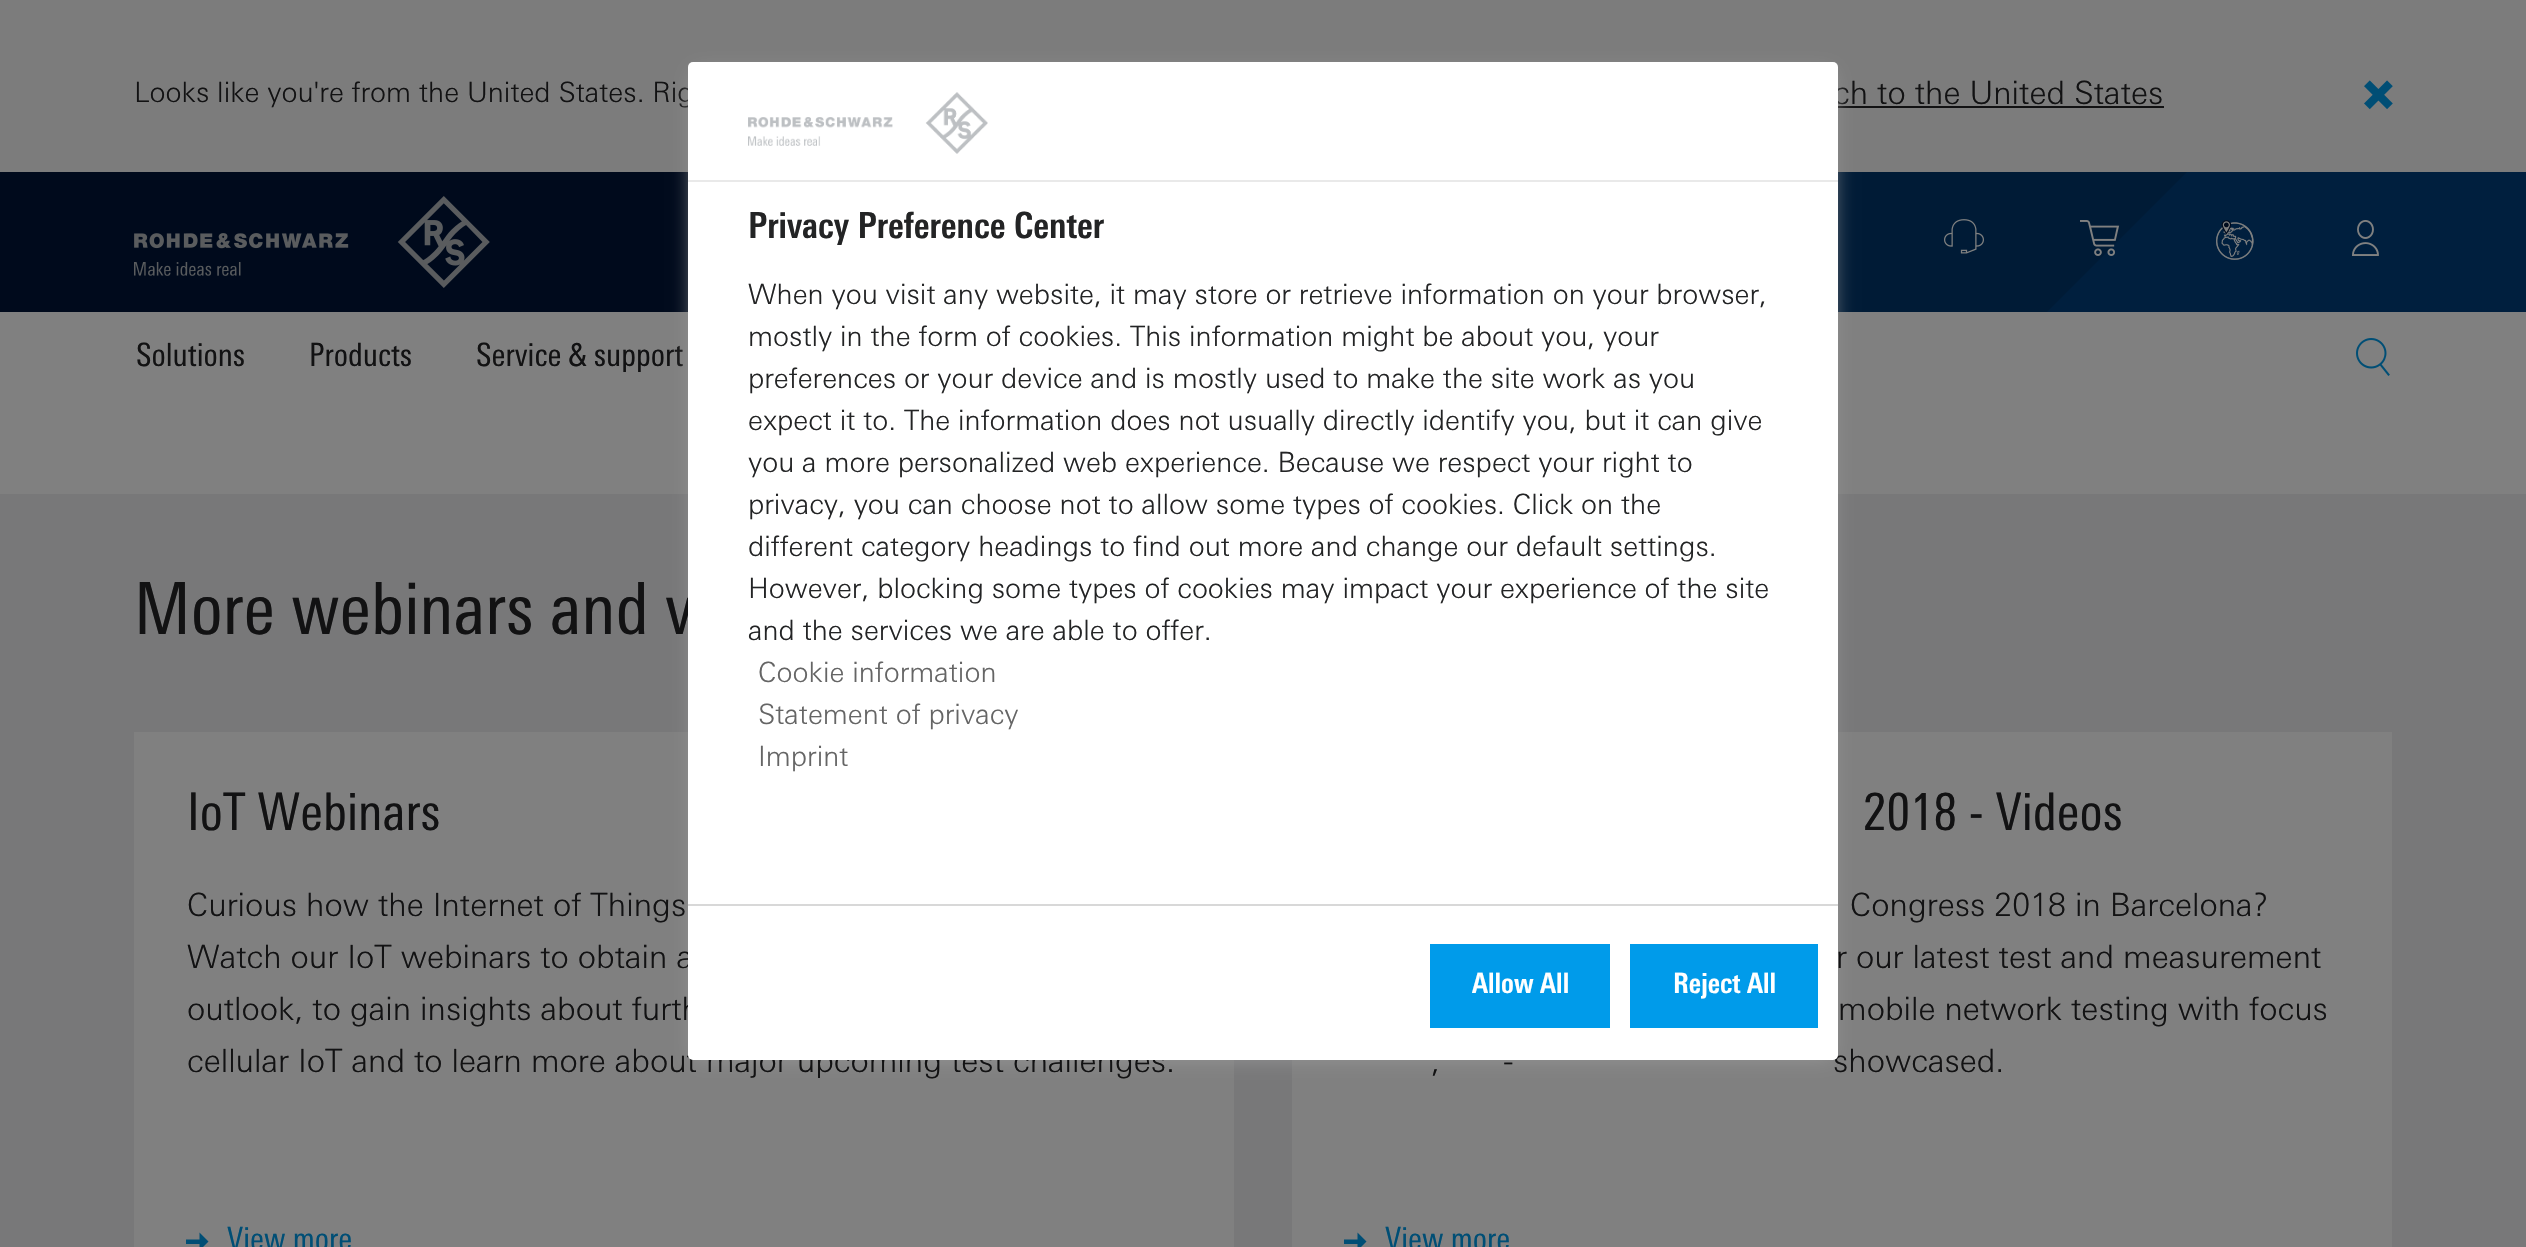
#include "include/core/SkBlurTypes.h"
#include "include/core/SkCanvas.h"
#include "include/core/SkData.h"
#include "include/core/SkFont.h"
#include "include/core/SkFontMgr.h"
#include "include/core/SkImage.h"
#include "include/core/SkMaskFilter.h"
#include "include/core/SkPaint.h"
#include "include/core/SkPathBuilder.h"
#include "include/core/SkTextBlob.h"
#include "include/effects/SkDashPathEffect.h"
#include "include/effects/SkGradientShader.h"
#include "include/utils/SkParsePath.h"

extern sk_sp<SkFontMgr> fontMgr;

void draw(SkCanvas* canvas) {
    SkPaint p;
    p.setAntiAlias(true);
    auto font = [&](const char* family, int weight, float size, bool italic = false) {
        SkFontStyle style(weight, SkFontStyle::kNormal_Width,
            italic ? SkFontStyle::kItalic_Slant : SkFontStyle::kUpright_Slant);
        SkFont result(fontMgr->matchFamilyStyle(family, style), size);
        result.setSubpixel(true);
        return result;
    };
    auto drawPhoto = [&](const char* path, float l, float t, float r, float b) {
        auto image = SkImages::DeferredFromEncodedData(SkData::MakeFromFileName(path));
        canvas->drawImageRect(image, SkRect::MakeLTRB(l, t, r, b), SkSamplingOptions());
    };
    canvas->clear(0xFF808080);
    p.setColor(0xFF7C7C7C);
    canvas->drawRect(SkRect::MakeLTRB(0, 0, 2526, 172), p);
    auto font1 = font("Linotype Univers", 300, 28);
    p.setColor(0xFF121213);
    canvas->drawString("Looks like you're from the United States. Rig", 134, 102, font1, p);
    auto font2 = font("Linotype Univers", 300, 32);
    canvas->drawString("ch to the United States", 1833, 104, font2, p);
    canvas->drawRect(SkRect::MakeLTRB(1838, 106, 2164, 108), p);
    drawPhoto("media/1.png", 2364, 80, 2393, 110);
    p.setColor(0xFF000A1C);
    canvas->drawRect(SkRect::MakeLTRB(0, 172, 688, 312), p);
    canvas->save();
    canvas->clipRect(SkRect::MakeLTRB(656, 172, 2526, 312));
    p.setColor(0xFF001B36);
    canvas->drawPath(SkPathBuilder().moveTo(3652, 532).lineTo(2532, -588).lineTo(1412, 532).lineTo(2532, 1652).close().detach(), p);
    p.setColor(0xFF001F3E);
    canvas->drawPath(SkPathBuilder().moveTo(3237, 532).lineTo(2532, -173).lineTo(1827, 532).lineTo(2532, 1237).close().detach(), p);
    canvas->restore();
    drawPhoto("media/2.png", 134, 196, 490, 288);
    drawPhoto("media/3.png", 1944, 219, 1984, 254);
    drawPhoto("media/4.png", 2080, 220, 2120, 256);
    drawPhoto("media/5.png", 2216, 220, 2254, 260);
    drawPhoto("media/6.png", 2352, 220, 2379, 256);
    auto font3 = font("Linotype Univers", 400, 32);
    p.setColor(0xFF121213);
    {
        const struct { const char* s; float x, y; } items[] = {
            {"Solutions", 136, 366},
            {"Products", 309, 366},
            {"Service & support", 476, 366},
        };
        for (auto [s, x, y] : items) {
            canvas->drawString(s, x, y, font3, p);
        }
    }
    drawPhoto("media/7.png", 2356, 338, 2390, 376);
    {
        const struct { float l, t, r, b; SkColor color; } items[] = {
            {0, 494, 2526, 1247, 0xFF787879},
            {134, 732, 1234, 1247, 0xFF808080},
            {1292, 732, 2392, 1247, 0xFF808080},
        };
        for (auto [l, t, r, b, color] : items) {
            p.setColor(color);
            canvas->drawRect(SkRect::MakeLTRB(l, t, r, b), p);
        }
    }
    p.setColor(0xFF999999);
    p.setMaskFilter(SkMaskFilter::MakeBlur(kNormal_SkBlurStyle, 10));
    canvas->drawRect(SkRect::MakeLTRB(694, 72, 1832, 1058), p);
    p.setMaskFilter(nullptr);
    auto font4 = font("Linotype Univers", 400, 72);
    p.setColor(0xFF121213);
    canvas->drawString("More webinars and v", 134, 634, font4, p);
    {
        const struct { const char* s; float x, y; } items[] = {
            {"Watch our IoT webinars to obtain a", 187, 968},
            {"outlook, to gain insights about furth", 187, 1020},
            {"cellular IoT and to learn more about major upcoming test challenges.", 187, 1072},
            {"showcased.", 1833, 1072},
        };
        for (auto [s, x, y] : items) {
            canvas->drawString(s, x, y, font2, p);
        }
    }
    p.setColor(0xFFFFFFFF);
    canvas->drawRoundRect(SkRect::MakeLTRB(688, 62, 1838, 1060), 5, 5, p);
    p.setColor(0xFFE9E9E9);
    canvas->drawRect(SkRect::MakeLTRB(688, 180, 1838, 182), p);
    drawPhoto("media/8.png", 748, 92, 988, 154);
    auto font5 = font("Linotype Univers", 700, 36);
    p.setColor(0xFF232425);
    canvas->drawString("Privacy Preference Center", 748, 238, font5, p);
    {
        const struct { const char* s; float x, y; } items[] = {
            {"When you visit any website, it may store or retrieve information on your browser,", 748, 304},
            {"mostly in the form of cookies. This information might be about you, your", 748, 346},
            {"preferences or your device and is mostly used to make the site work as you", 748, 388},
            {"expect it to. The information does not usually directly identify you, but it can give", 748, 430},
            {"you a more personalized web experience. Because we respect your right to", 748, 472},
            {"privacy, you can choose not to allow some types of cookies. Click on the", 748, 514},
            {"different category headings to find out more and change our default settings.", 748, 556},
            {"However, blocking some types of cookies may impact your experience of the site", 748, 598},
            {"and the services we are able to offer.", 748, 640},
        };
        for (auto [s, x, y] : items) {
            canvas->drawString(s, x, y, font1, p);
        }
    }
    p.setColor(0xFF656565);
    {
        const struct { const char* s; float x, y; } items[] = {
            {"Cookie information", 758, 682},
            {"Statement of privacy", 758, 724},
            {"Imprint", 758, 766},
        };
        for (auto [s, x, y] : items) {
            canvas->drawString(s, x, y, font1, p);
        }
    }
    p.setColor(0xFFD8D8D8);
    canvas->drawRect(SkRect::MakeLTRB(688, 904, 1838, 906), p);
    p.setColor(0xFF009BEA);
    canvas->drawRect(SkRect::MakeLTRB(1430, 944, 1610, 1028), p);
    auto font6 = font("Linotype Univers", 700, 28);
    p.setColor(0xFFFFFFFF);
    canvas->drawString("Allow All", 1472, 993, font6, p);
    p.setColor(0xFF009BEA);
    canvas->drawRect(SkRect::MakeLTRB(1630, 944, 1818, 1028), p);
    p.setColor(0xFFFFFFFF);
    canvas->drawString("Reject All", 1673, 993, font6, p);
    auto font7 = font("Linotype Univers", 400, 52);
    p.setColor(0xFF121213);
    canvas->drawString("IoT Webinars", 187, 830, font7, p);
    canvas->drawString("Curious how the Internet of Things", 187, 916, font2, p);
    p.setColor(0xFF004E75);
    canvas->drawPath(SkPathBuilder().moveTo(199.5f, 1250.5f).lineTo(199.5f, 1244).lineTo(186, 1244).lineTo(186, 1239.5f).lineTo(199.5f, 1239.5f).lineTo(199.5f, 1232.5f).lineTo(208.5f, 1241.5f).close().detach(), p);
    canvas->drawString("View more", 227, 1250, font3, p);
    p.setColor(0xFF121213);
    canvas->drawString("2018 - Videos", 1863, 830, font7, p);
    {
        const struct { const char* s; float x, y; } items[] = {
            {"Congress 2018 in Barcelona?", 1850, 916},
            {"r our latest test and measurement", 1836, 968},
            {"mobile network testing with focus", 1838, 1020},
            {"-", 1503, 1072},
            {",", 1431, 1072},
        };
        for (auto [s, x, y] : items) {
            canvas->drawString(s, x, y, font2, p);
        }
    }
    p.setColor(0xFF004E75);
    canvas->drawPath(SkPathBuilder().moveTo(1357.5f, 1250.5f).lineTo(1357.5f, 1244).lineTo(1344, 1244).lineTo(1344, 1239.5f).lineTo(1357.5f, 1239.5f).lineTo(1357.5f, 1232.5f).lineTo(1366.5f, 1241.5f).close().detach(), p);
    canvas->drawString("View more", 1385, 1250, font3, p);
}
